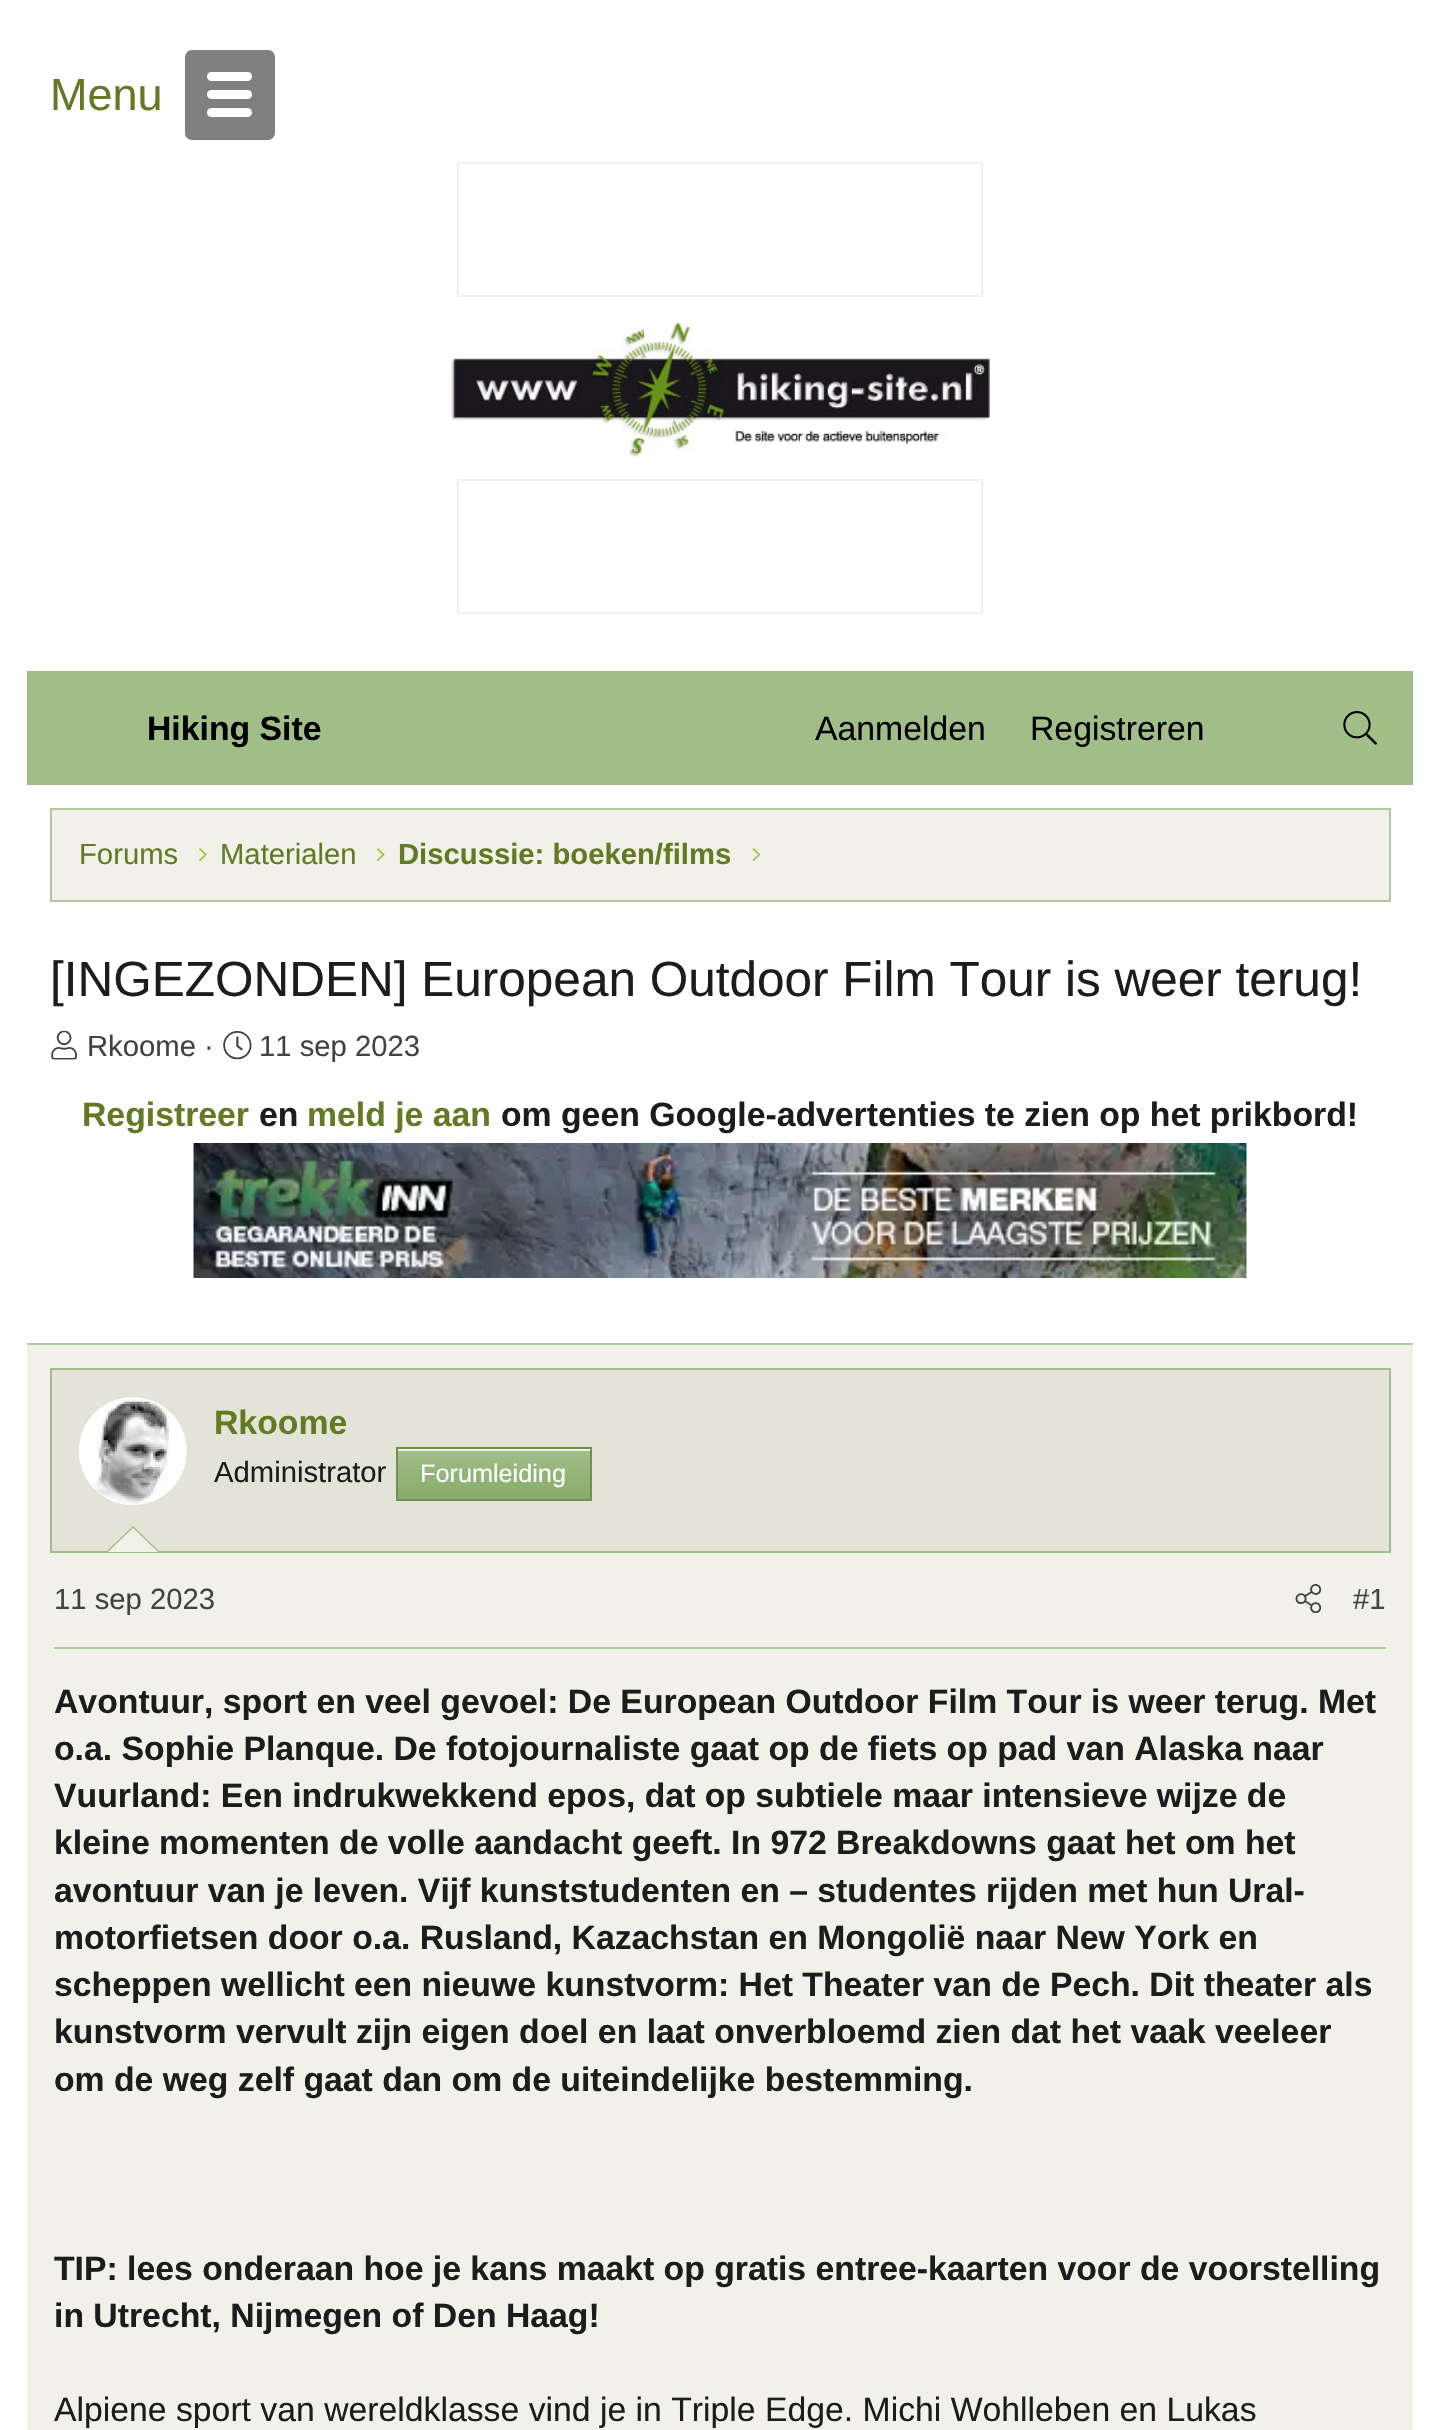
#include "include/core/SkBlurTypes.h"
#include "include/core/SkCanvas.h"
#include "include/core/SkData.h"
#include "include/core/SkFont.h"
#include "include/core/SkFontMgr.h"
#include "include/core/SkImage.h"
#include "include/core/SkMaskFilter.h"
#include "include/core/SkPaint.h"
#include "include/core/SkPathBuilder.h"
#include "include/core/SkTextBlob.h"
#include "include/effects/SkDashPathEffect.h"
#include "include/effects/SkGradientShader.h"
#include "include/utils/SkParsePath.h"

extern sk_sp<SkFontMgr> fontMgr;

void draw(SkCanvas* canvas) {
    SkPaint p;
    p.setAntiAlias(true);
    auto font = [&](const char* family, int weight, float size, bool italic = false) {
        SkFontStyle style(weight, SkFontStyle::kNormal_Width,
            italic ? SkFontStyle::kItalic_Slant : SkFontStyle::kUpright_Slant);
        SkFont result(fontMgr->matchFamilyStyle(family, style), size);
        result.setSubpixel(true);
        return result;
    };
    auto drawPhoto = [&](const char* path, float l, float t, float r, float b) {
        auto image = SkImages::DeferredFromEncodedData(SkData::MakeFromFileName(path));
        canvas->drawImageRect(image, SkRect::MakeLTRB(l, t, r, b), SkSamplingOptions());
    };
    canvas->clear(0xFFFFFFFF);
    auto font1 = font("Liberation Sans", 400, 45);
    p.setColor(0xFF637A24);
    canvas->drawString("Menu", 50, 110, font1, p);
    p.setColor(0xFF808080);
    canvas->drawRoundRect(SkRect::MakeLTRB(185, 50, 275, 140), 7, 7, p);
    p.setColor(0xFFFFFFFF);
    canvas->drawRoundRect(SkRect::MakeLTRB(207, 72, 252, 81), 4.5f, 4.5f, p);
    canvas->drawRoundRect(SkRect::MakeLTRB(207, 90, 252, 99), 4.5f, 4.5f, p);
    canvas->drawRoundRect(SkRect::MakeLTRB(207, 108, 252, 117), 4.5f, 4.5f, p);
    p.setStyle(SkPaint::kStroke_Style);
    p.setStrokeWidth(2);
    p.setColor(0xFFF1F1E9);
    canvas->drawRect(SkRect::MakeLTRB(458, 163, 982, 296), p);
    drawPhoto("media/1.png", 450, 319, 990, 457);
    canvas->drawRect(SkRect::MakeLTRB(458, 480, 982, 613), p);
    p.setStyle(SkPaint::kFill_Style);
    p.setColor(0xFFA1BE89);
    canvas->drawRect(SkRect::MakeLTRB(27, 671, 1413, 785), p);
    auto font2 = font("Liberation Sans", 700, 33.75f);
    p.setColor(0xFF000000);
    canvas->drawString("Hiking Site", 147, 740, font2, p);
    auto font3 = font("Liberation Sans", 400, 33.75f);
    canvas->drawString("Aanmelden", 815, 740, font3, p);
    canvas->drawString("Registreren", 1030, 740, font3, p);
    drawPhoto("media/2.png", 1343, 711, 1377, 745);
    p.setColor(0xFFF1F1E9);
    canvas->drawRect(SkRect::MakeLTRB(51, 809, 1390, 901), p);
    p.setStyle(SkPaint::kStroke_Style);
    p.setColor(0xFFB1C99C);
    canvas->drawRect(SkRect::MakeLTRB(51, 809, 1390, 901), p);
    auto font4 = font("Liberation Sans", 400, 29.25f);
    p.setStyle(SkPaint::kFill_Style);
    p.setColor(0xFF637A24);
    canvas->drawString("Forums", 79, 864, font4, p);
    drawPhoto("media/3.png", 199, 848, 207, 862);
    canvas->drawString("Materialen", 220, 864, font4, p);
    drawPhoto("media/4.png", 376, 848, 385, 862);
    auto font5 = font("Liberation Sans", 700, 29.25f);
    canvas->drawString("Discussie: boeken/films", 398, 864, font5, p);
    drawPhoto("media/5.png", 752, 848, 761, 862);
    auto font6 = font("Liberation Sans", 400, 49.5f);
    p.setColor(0xFF1C1C1C);
    canvas->drawString("[INGEZONDEN] European Outdoor Film Tour is weer terug!", 50, 996, font6, p);
    drawPhoto("media/6.png", 51, 1030, 77, 1060);
    p.setColor(0xFF424242);
    canvas->drawString("Rkoome ·", 87, 1056, font4, p);
    drawPhoto("media/7.png", 223, 1031, 252, 1060);
    canvas->drawString("11 sep 2023", 259, 1056, font4, p);
    p.setColor(0xFF637A24);
    canvas->drawString("Registreer", 82, 1126, font2, p);
    p.setColor(0xFF1C1C1C);
    canvas->drawString("en", 259, 1126, font2, p);
    p.setColor(0xFF637A24);
    canvas->drawString("meld je aan", 307, 1126, font2, p);
    p.setColor(0xFF1C1C1C);
    canvas->drawString("om geen Google-advertenties te zien op het prikbord!", 501, 1126, font2, p);
    drawPhoto("media/8.png", 193, 1143, 1247, 1278);
    p.setColor(0xFFF1F1E9);
    canvas->drawRect(SkRect::MakeLTRB(27, 1345, 1413, 2430), p);
    p.setColor(0xFFB1C99C);
    canvas->drawRect(SkRect::MakeLTRB(27, 1343, 1413, 1345), p);
    p.setColor(0xFFE3E3D8);
    canvas->drawRect(SkRect::MakeLTRB(51, 1369, 1390, 1552), p);
    p.setStyle(SkPaint::kStroke_Style);
    p.setColor(0xFFA1BE89);
    canvas->drawRect(SkRect::MakeLTRB(51, 1369, 1390, 1552), p);
    p.setStyle(SkPaint::kFill_Style);
    p.setColor(0xFFF1F1E9);
    canvas->drawCircle(133, 1451, 54, p);
    drawPhoto("media/9.png", 79, 1397, 187, 1505);
    p.setColor(0xFF637A24);
    canvas->drawString("Rkoome", 214, 1434, font2, p);
    p.setColor(0xFF1C1C1C);
    canvas->drawString("Administrator", 214, 1482, font4, p);
    {
        const SkColor colors[] = {0xFFA1BE89, 0xFF87AC68};
        const float stops[] = {0, 1};
        const SkPoint ends[] = {{494, 1449}, {494, 1499}};
        p.setShader(SkGradientShader::MakeLinear(ends, colors, stops, 2, SkTileMode::kClamp));
        p.setAlpha(255);
    }
    canvas->drawRect(SkRect::MakeLTRB(398, 1451, 590, 1499), p);
    p.setShader(nullptr);
    p.setColor(0xFFEFF4EB);
    canvas->drawRect(SkRect::MakeLTRB(398, 1449, 590, 1451), p);
    p.setStyle(SkPaint::kStroke_Style);
    p.setColor(0xFF6E9150);
    canvas->drawRect(SkRect::MakeLTRB(397, 1448, 591, 1500), p);
    auto font7 = font("Liberation Sans", 400, 25.25f);
    p.setStyle(SkPaint::kFill_Style);
    p.setColor(0xFFFFFFFF);
    canvas->drawString("Forumleiding", 420, 1482, font7, p);
    p.setColor(0xFFA1BE89);
    canvas->drawPath(SkPathBuilder().moveTo(160, 1552).lineTo(106, 1552).lineTo(133, 1526).close().detach(), p);
    p.setColor(0xFFF1F1E9);
    canvas->drawPath(SkPathBuilder().moveTo(158, 1552).lineTo(108, 1552).lineTo(133, 1528).close().detach(), p);
    p.setColor(0xFFB1C99C);
    canvas->drawRect(SkRect::MakeLTRB(54, 1647, 1386, 1649), p);
    p.setColor(0xFF424242);
    canvas->drawString("11 sep 2023", 54, 1609, font4, p);
    drawPhoto("media/10.png", 1295, 1584, 1322, 1613);
    canvas->drawString("#1", 1353, 1609, font4, p);
    p.setColor(0xFF1C1C1C);
    {
        const struct { const char* s; float x, y; } items[] = {
            {"Avontuur, sport en veel gevoel: De European Outdoor Film Tour is weer terug. Met", 54, 1713},
            {"o.a. Sophie Planque. De fotojournaliste gaat op de fiets op pad van Alaska naar", 54, 1760},
            {"Vuurland: Een indrukwekkend epos, dat op subtiele maar intensieve wijze de", 54, 1807},
            {"kleine momenten de volle aandacht geeft. In 972 Breakdowns gaat het om het", 54, 1854},
            {"avontuur van je leven. Vijf kunststudenten en – studentes rijden met hun Ural-", 54, 1902},
            {"motorfietsen door o.a. Rusland, Kazachstan en Mongolië naar New York en", 54, 1949},
            {"scheppen wellicht een nieuwe kunstvorm: Het Theater van de Pech. Dit theater als", 54, 1996},
            {"kunstvorm vervult zijn eigen doel en laat onverbloemd zien dat het vaak veeleer", 54, 2043},
            {"om de weg zelf gaat dan om de uiteindelijke bestemming.", 54, 2091},
            {"TIP: lees onderaan hoe je kans maakt op gratis entree-kaarten voor de voorstelling", 54, 2280},
            {"in Utrecht, Nijmegen of Den Haag!", 54, 2327},
        };
        for (auto [s, x, y] : items) {
            canvas->drawString(s, x, y, font2, p);
        }
    }
    canvas->drawString("Alpiene sport van wereldklasse vind je in Triple Edge. Michi Wohlleben en Lukas", 54, 2421, font3, p);
}
